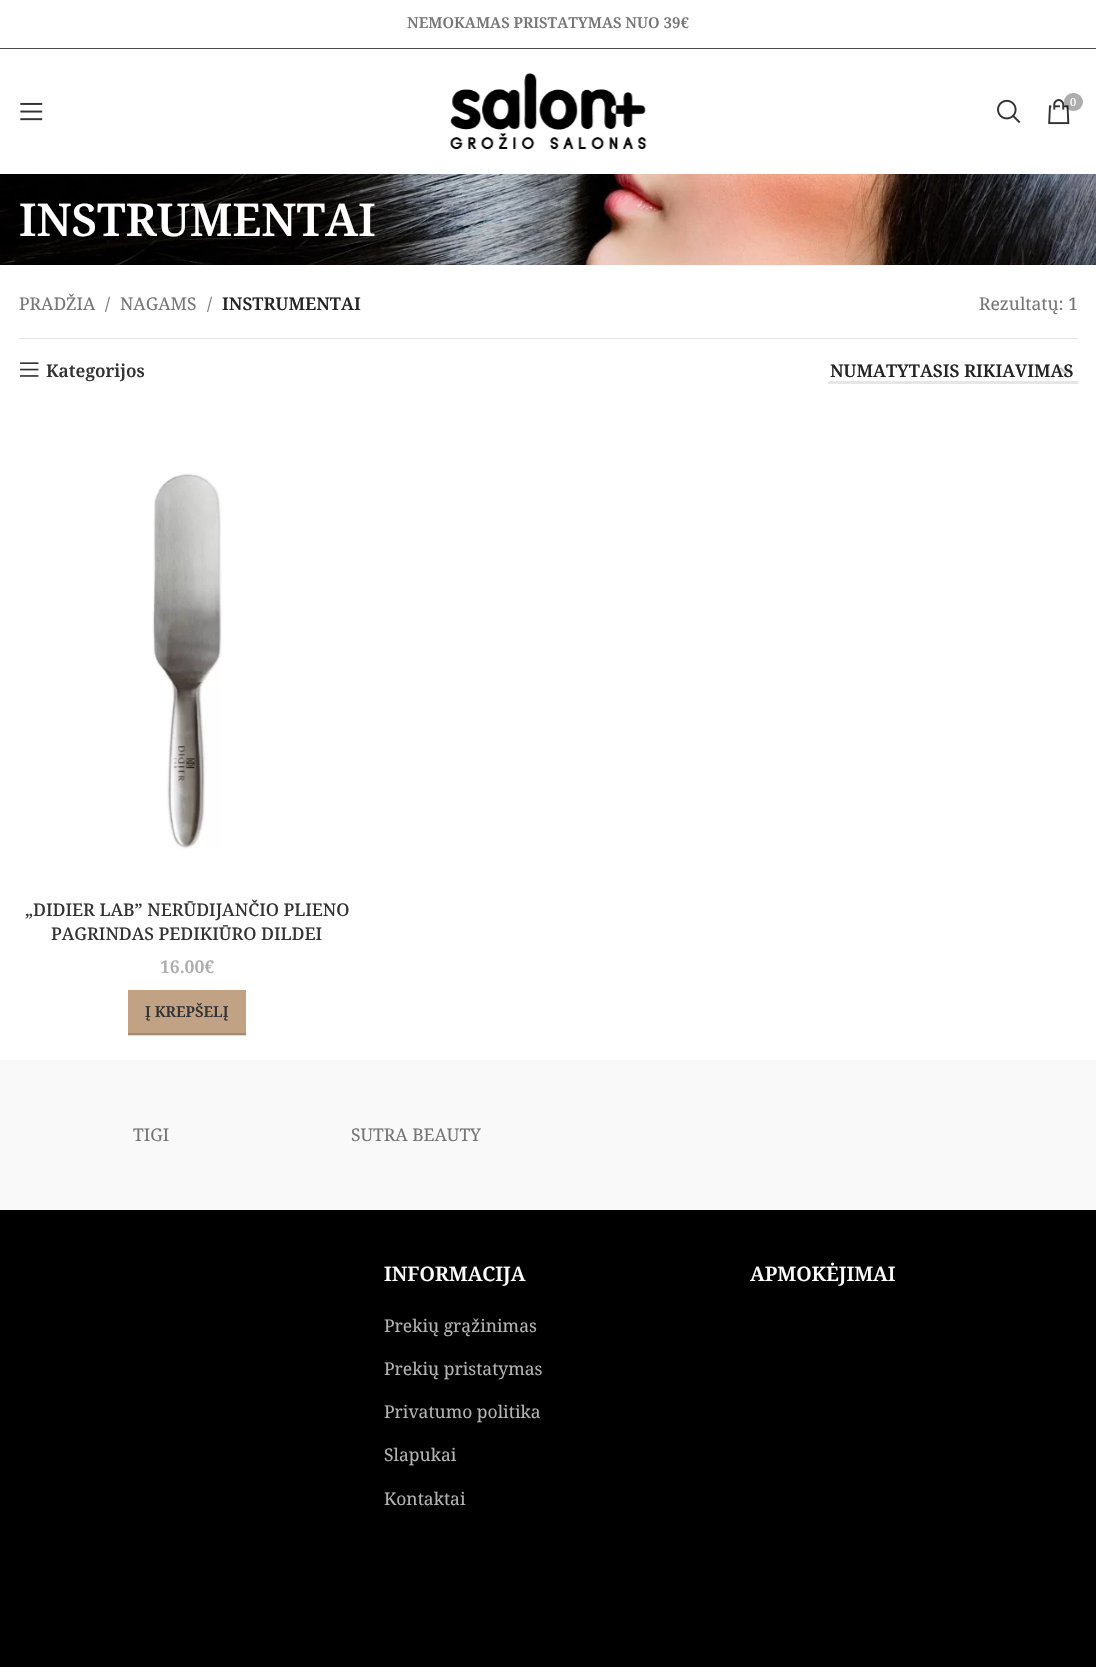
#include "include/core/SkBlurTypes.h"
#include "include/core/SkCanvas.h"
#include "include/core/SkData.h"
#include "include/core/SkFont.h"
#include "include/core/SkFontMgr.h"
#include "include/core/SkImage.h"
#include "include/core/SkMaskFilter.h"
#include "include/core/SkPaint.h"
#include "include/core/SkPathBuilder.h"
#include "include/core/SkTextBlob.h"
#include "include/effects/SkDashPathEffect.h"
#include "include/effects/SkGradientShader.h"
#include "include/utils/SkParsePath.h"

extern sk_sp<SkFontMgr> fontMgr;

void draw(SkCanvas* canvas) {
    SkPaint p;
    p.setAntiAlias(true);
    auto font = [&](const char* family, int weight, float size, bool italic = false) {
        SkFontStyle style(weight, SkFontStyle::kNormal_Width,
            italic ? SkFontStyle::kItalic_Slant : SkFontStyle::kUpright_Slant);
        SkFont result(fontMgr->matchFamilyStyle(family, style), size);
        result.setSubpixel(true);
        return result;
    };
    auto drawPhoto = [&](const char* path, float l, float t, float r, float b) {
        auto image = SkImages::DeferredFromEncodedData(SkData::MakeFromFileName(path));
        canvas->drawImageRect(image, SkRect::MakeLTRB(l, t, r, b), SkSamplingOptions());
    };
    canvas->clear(0xFFFFFFFF);
    p.setColor(0xFFD9D9D9);
    canvas->drawRect(SkRect::MakeLTRB(128, 1035, 246, 1036), p);
    p.setColor(0xFF4A4A4A);
    canvas->drawRect(SkRect::MakeLTRB(0, 48, 1096, 49), p);
    auto font1 = font("Noto Serif", 600, 15);
    p.setColor(0xFF767676);
    canvas->drawString("NEMOKAMAS PRISTATYMAS NUO 39€", 407, 28, font1, p);
    drawPhoto("media/1.png", 20, 102, 43, 121);
    drawPhoto("media/2.png", 450, 73, 647, 150);
    drawPhoto("media/3.png", 997, 99, 1021, 123);
    drawPhoto("media/4.png", 1048, 99, 1070, 125);
    p.setColor(0x52000000);
    canvas->drawRoundRect(SkRect::MakeLTRB(1064, 93, 1083, 111), 9, 9, p);
    auto font2 = font("Noto Serif", 400, 11);
    p.setColor(0xFFFFFFFF);
    canvas->drawString("0", 1070, 106, font2, p);
    drawPhoto("media/5.png", 0, 174, 1096, 265);
    auto font3 = font("Noto Serif", 600, 45);
    canvas->drawString("INSTRUMENTAI", 19, 236, font3, p);
    p.setColor(0xFFE4E4E4);
    canvas->drawRect(SkRect::MakeLTRB(19, 338, 1078, 339), p);
    auto font4 = font("Noto Serif", 400, 17.5f);
    p.setColor(0xFF767676);
    {
        const struct { const char* s; float x, y; } items[] = {
            {"PRADŽIA", 19, 310},
            {"/", 105, 310},
            {"NAGAMS", 120, 310},
            {"/", 207, 310},
        };
        for (auto [s, x, y] : items) {
            canvas->drawString(s, x, y, font4, p);
        }
    }
    auto font5 = font("Noto Serif", 600, 17.5f);
    p.setColor(0xFF242424);
    canvas->drawString("INSTRUMENTAI", 222, 310, font5, p);
    p.setColor(0xFF767676);
    canvas->drawString("Rezultatų: 1", 979, 310, font4, p);
    drawPhoto("media/6.png", 20, 362, 39, 377);
    p.setColor(0xFF333333);
    canvas->drawString("Kategorijos", 46, 377, font5, p);
    p.setStyle(SkPaint::kStroke_Style);
    p.setStrokeWidth(1.8f);
    p.setColor(0xFFBBBBBB);
    canvas->drawPath(SkPathBuilder().moveTo(1060.5f, 368).lineTo(1066, 373.5f).lineTo(1071, 368).detach(), p);
    p.setStyle(SkPaint::kFill_Style);
    p.setColor(0xFFE6E6E6);
    canvas->drawRect(SkRect::MakeLTRB(828, 381, 1078, 384), p);
    p.setColor(0xFF242424);
    canvas->drawString("NUMATYTASIS RIKIAVIMAS", 830, 377, font5, p);
    drawPhoto("media/7.png", 152, 473, 222, 849);
    auto font6 = font("Noto Serif", 500, 17.5f);
    p.setColor(0xFF333333);
    canvas->drawString("„DIDIER LAB” NERŪDIJANČIO PLIENO", 25, 916, font6, p);
    canvas->drawString("PAGRINDAS PEDIKIŪRO DILDEI", 51, 940, font6, p);
    p.setColor(0xFFADADAD);
    canvas->drawString("16.00€", 160, 973, font5, p);
    p.setColor(0xFFC2A284);
    canvas->drawRect(SkRect::MakeLTRB(128, 990, 246, 1033), p);
    p.setColor(0xFFA58A70);
    canvas->drawRect(SkRect::MakeLTRB(128, 1033, 246, 1035), p);
    p.setColor(0xFF333333);
    canvas->drawString("Į KREPŠELĮ", 145, 1017, font1, p);
    p.setColor(0xFFF9F9F9);
    canvas->drawRect(SkRect::MakeLTRB(0, 1060, 1096, 1210), p);
    p.setColor(0xFF767676);
    canvas->drawString("TIGI", 133, 1141, font4, p);
    canvas->drawString("SUTRA BEAUTY", 351, 1141, font4, p);
    p.setColor(0xFF000000);
    canvas->drawRect(SkRect::MakeLTRB(0, 1210, 1096, 1667), p);
    auto font7 = font("Noto Serif", 600, 20);
    p.setColor(0xFFFFFFFF);
    canvas->drawString("INFORMACIJA", 384, 1281, font7, p);
    p.setColor(0xFFB3B3B3);
    {
        const struct { const char* s; float x, y; } items[] = {
            {"Prekių grąžinimas", 384, 1332},
            {"Prekių pristatymas", 384, 1375},
            {"Privatumo politika", 384, 1418},
            {"Slapukai", 384, 1461},
            {"Kontaktai", 384, 1505},
        };
        for (auto [s, x, y] : items) {
            canvas->drawString(s, x, y, font4, p);
        }
    }
    p.setColor(0xFFFFFFFF);
    canvas->drawString("APMOKĖJIMAI", 750, 1281, font7, p);
}
